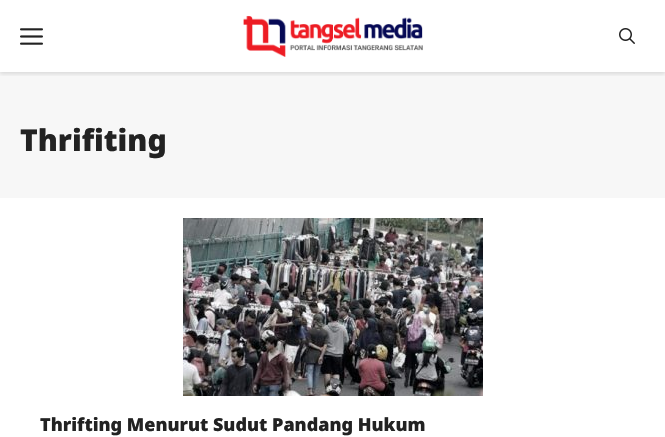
#include "include/core/SkBlurTypes.h"
#include "include/core/SkCanvas.h"
#include "include/core/SkData.h"
#include "include/core/SkFont.h"
#include "include/core/SkFontMgr.h"
#include "include/core/SkImage.h"
#include "include/core/SkMaskFilter.h"
#include "include/core/SkPaint.h"
#include "include/core/SkPathBuilder.h"
#include "include/core/SkTextBlob.h"
#include "include/effects/SkDashPathEffect.h"
#include "include/effects/SkGradientShader.h"
#include "include/utils/SkParsePath.h"

extern sk_sp<SkFontMgr> fontMgr;

void draw(SkCanvas* canvas) {
    SkPaint p;
    p.setAntiAlias(true);
    auto font = [&](const char* family, int weight, float size, bool italic = false) {
        SkFontStyle style(weight, SkFontStyle::kNormal_Width,
            italic ? SkFontStyle::kItalic_Slant : SkFontStyle::kUpright_Slant);
        SkFont result(fontMgr->matchFamilyStyle(family, style), size);
        result.setSubpixel(true);
        return result;
    };
    auto drawPhoto = [&](const char* path, float l, float t, float r, float b) {
        auto image = SkImages::DeferredFromEncodedData(SkData::MakeFromFileName(path));
        canvas->drawImageRect(image, SkRect::MakeLTRB(l, t, r, b), SkSamplingOptions());
    };
    canvas->clear(0xFFFFFFFF);
    p.setColor(0xFFF7F7F7);
    canvas->drawRect(SkRect::MakeLTRB(0, 72, 665, 198), p);
    canvas->save();
    canvas->clipRect(SkRect::MakeLTRB(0, 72, 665, 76));
    p.setColor(0x1F000000);
    p.setMaskFilter(SkMaskFilter::MakeBlur(kNormal_SkBlurStyle, 2));
    canvas->drawRect(SkRect::MakeLTRB(0, 2, 665, 74), p);
    p.setMaskFilter(nullptr);
    canvas->restore();
    drawPhoto("media/1.png", 243, 15, 423, 57);
    drawPhoto("media/2.png", 20, 28, 43, 45);
    drawPhoto("media/3.png", 619, 28, 635, 44);
    auto font1 = font("Noto Sans", 900, 30);
    p.setColor(0xFF222222);
    canvas->drawString("Thrifiting", 20, 151, font1, p);
    drawPhoto("media/4.png", 183, 218, 483, 396);
    auto font2 = font("Noto Sans", 900, 18);
    canvas->drawString("Thrifting Menurut Sudut Pandang Hukum", 40, 431, font2, p);
}
